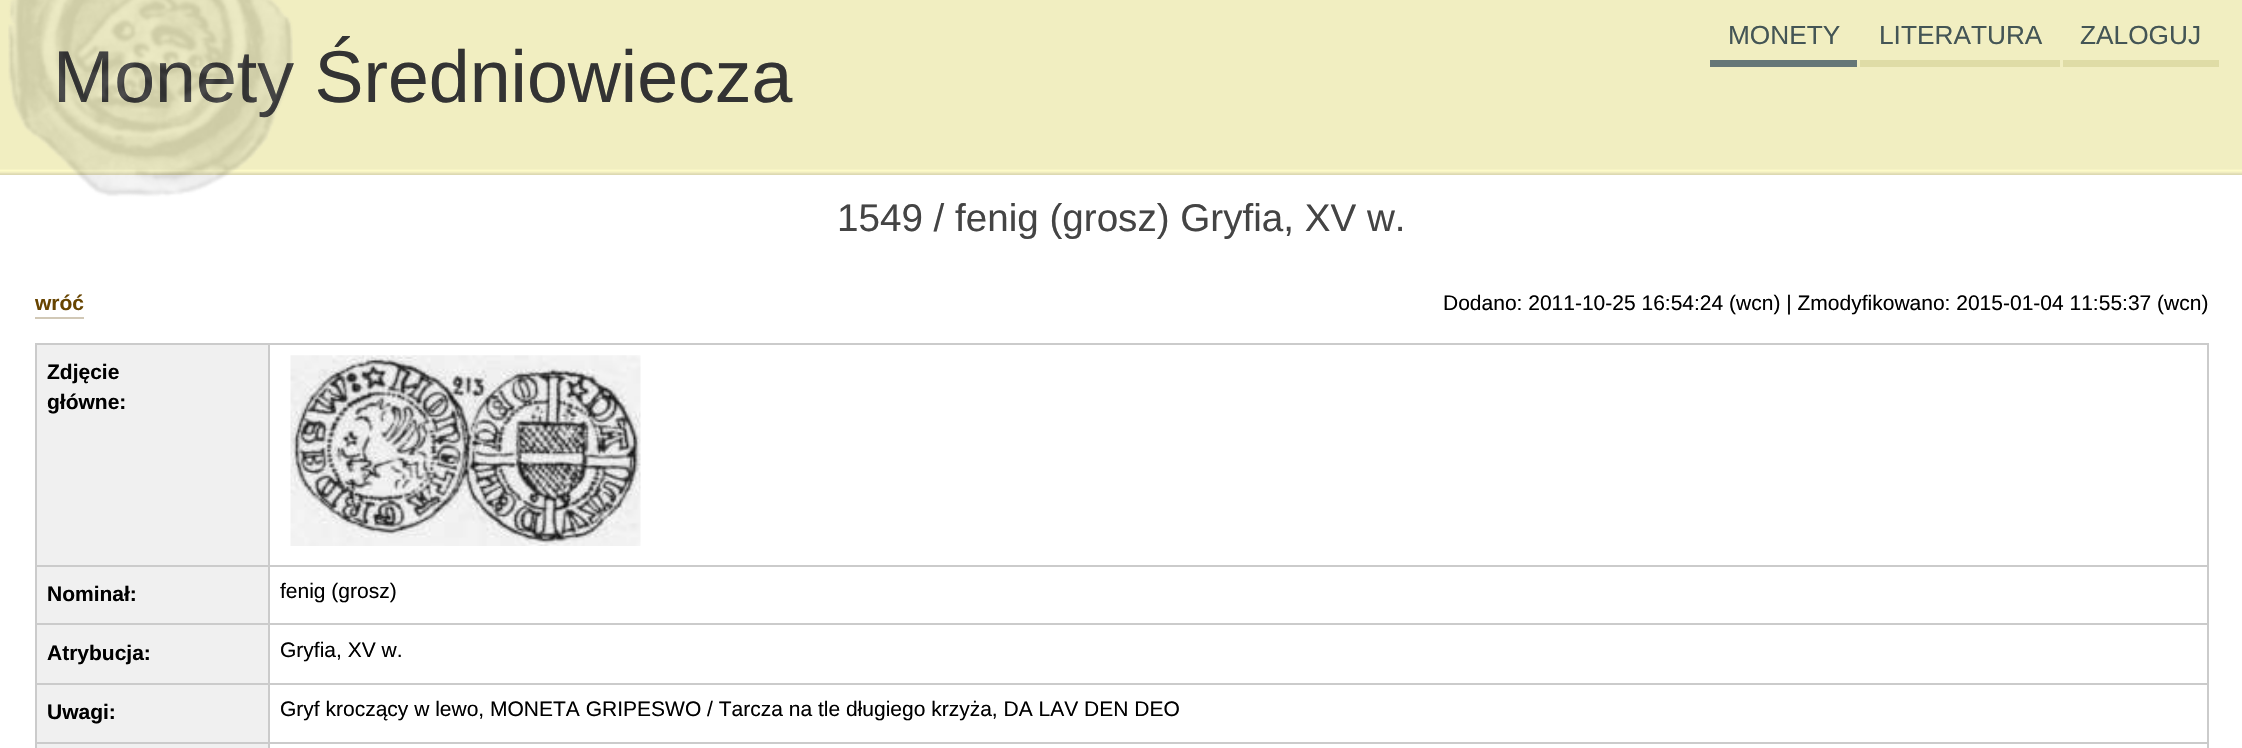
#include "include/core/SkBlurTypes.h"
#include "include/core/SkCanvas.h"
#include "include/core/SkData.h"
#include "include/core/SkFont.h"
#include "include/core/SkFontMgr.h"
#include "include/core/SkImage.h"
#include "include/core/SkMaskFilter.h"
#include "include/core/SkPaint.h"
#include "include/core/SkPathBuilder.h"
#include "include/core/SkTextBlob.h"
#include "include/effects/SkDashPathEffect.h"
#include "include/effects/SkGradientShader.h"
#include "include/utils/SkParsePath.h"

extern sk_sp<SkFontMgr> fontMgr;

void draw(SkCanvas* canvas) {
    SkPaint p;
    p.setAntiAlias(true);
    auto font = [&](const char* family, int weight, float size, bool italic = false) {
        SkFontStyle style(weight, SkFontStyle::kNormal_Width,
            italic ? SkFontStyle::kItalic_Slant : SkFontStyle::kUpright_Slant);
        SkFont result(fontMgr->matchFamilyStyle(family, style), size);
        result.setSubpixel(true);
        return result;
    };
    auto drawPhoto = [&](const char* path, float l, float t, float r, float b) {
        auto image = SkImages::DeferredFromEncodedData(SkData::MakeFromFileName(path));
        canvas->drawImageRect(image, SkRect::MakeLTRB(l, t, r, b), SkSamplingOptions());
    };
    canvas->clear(0xFFFFFFFF);
    drawPhoto("media/1.png", 0, 0, 2242, 175);
    auto font1 = font("Liberation Sans", 400, 73.5f);
    p.setColor(0xFF333333);
    canvas->drawString("Monety Średniowiecza", 53, 102, font1, p);
    drawPhoto("media/2.png", 8, 0, 293, 197);
    p.setColor(0xFF667777);
    canvas->drawRect(SkRect::MakeLTRB(1710, 60, 1857, 67), p);
    auto font2 = font("Liberation Sans", 400, 26.25f);
    p.setColor(0xFF445555);
    canvas->drawString("MONETY", 1728, 44, font2, p);
    p.setColor(0xFFDFDCA6);
    canvas->drawRect(SkRect::MakeLTRB(1860, 60, 2060, 67), p);
    p.setColor(0xFF445555);
    canvas->drawString("LITERATURA", 1879, 44, font2, p);
    p.setColor(0xFFDFDCA6);
    canvas->drawRect(SkRect::MakeLTRB(2063, 60, 2219, 67), p);
    p.setColor(0xFF445555);
    canvas->drawString("ZALOGUJ", 2080, 44, font2, p);
    auto font3 = font("Liberation Sans", 400, 38.6f);
    p.setColor(0xFF444444);
    canvas->drawString("1549 / fenig (grosz) Gryfia, XV w.", 837, 231, font3, p);
    auto font4 = font("Liberation Sans", 700, 21);
    p.setColor(0xFF674400);
    canvas->drawString("wróć", 35, 310, font4, p);
    p.setColor(0xFFD1C8B6);
    canvas->drawRect(SkRect::MakeLTRB(35, 317, 84, 319), p);
    auto font5 = font("Liberation Sans", 400, 21);
    p.setColor(0xFF000000);
    canvas->drawString("Dodano: 2011-10-25 16:54:24 (wcn) | Zmodyfikowano: 2015-01-04 11:55:37 (wcn)", 1443, 310, font5, p);
    {
        const struct { float l, t, r, b; SkColor color; } items[] = {
            {37, 345, 268, 565, 0xFFF0F0F0},
            {268, 343, 2209, 345, 0xFFCBCBCB},
            {268, 565, 2209, 567, 0xFFCBCBCB},
            {268, 623, 2209, 625, 0xFFCBCBCB},
            {268, 683, 2209, 685, 0xFFCBCBCB},
            {268, 742, 2209, 744, 0xFFCBCBCB},
            {37, 744, 270, 748, 0xFFF0F0F0},
            {268, 742, 270, 748, 0xFFCBCBCB},
            {35, 742, 270, 744, 0xFFCBCBCB},
            {268, 683, 270, 744, 0xFFCBCBCB},
            {35, 683, 270, 685, 0xFFCBCBCB},
            {268, 623, 270, 684, 0xFFCBCBCB},
            {35, 623, 270, 625, 0xFFCBCBCB},
            {268, 565, 270, 625, 0xFFCBCBCB},
            {35, 565, 270, 567, 0xFFCBCBCB},
            {268, 343, 270, 567, 0xFFCBCBCB},
            {35, 343, 270, 345, 0xFFCBCBCB},
            {35, 742, 37, 748, 0xFFCBCBCB},
            {35, 683, 37, 744, 0xFFCBCBCB},
            {35, 623, 37, 684, 0xFFCBCBCB},
            {35, 565, 37, 625, 0xFFCBCBCB},
            {35, 343, 37, 567, 0xFFCBCBCB},
        };
        for (auto [l, t, r, b, color] : items) {
            p.setColor(color);
            canvas->drawRect(SkRect::MakeLTRB(l, t, r, b), p);
        }
    }
    p.setColor(0xFF000000);
    canvas->drawString("Zdjęcie", 47, 379, font4, p);
    canvas->drawString("główne:", 47, 409, font4, p);
    {
        const struct { float l, t, r, b; SkColor color; } items[] = {
            {2207, 742, 2209, 748, 0xFFCBCBCB},
            {2207, 683, 2209, 744, 0xFFCBCBCB},
            {2207, 623, 2209, 684, 0xFFCBCBCB},
            {2207, 565, 2209, 625, 0xFFCBCBCB},
            {2207, 343, 2209, 567, 0xFFCBCBCB},
        };
        for (auto [l, t, r, b, color] : items) {
            p.setColor(color);
            canvas->drawRect(SkRect::MakeLTRB(l, t, r, b), p);
        }
    }
    drawPhoto("media/3.png", 290, 355, 641, 546);
    p.setColor(0xFFF0F0F0);
    canvas->drawRect(SkRect::MakeLTRB(37, 567, 268, 623), p);
    p.setColor(0xFF000000);
    canvas->drawString("Nominał:", 47, 601, font4, p);
    canvas->drawString("fenig (grosz)", 280, 598, font5, p);
    p.setColor(0xFFF0F0F0);
    canvas->drawRect(SkRect::MakeLTRB(37, 625, 268, 683), p);
    p.setColor(0xFF000000);
    canvas->drawString("Atrybucja:", 47, 660, font4, p);
    canvas->drawString("Gryfia, XV w.", 280, 657, font5, p);
    p.setColor(0xFFF0F0F0);
    canvas->drawRect(SkRect::MakeLTRB(37, 685, 268, 742), p);
    p.setColor(0xFF000000);
    canvas->drawString("Uwagi:", 47, 719, font4, p);
    canvas->drawString("Gryf kroczący w lewo, MONETA GRIPESWO / Tarcza na tle długiego krzyża, DA LAV DEN DEO", 280, 716, font5, p);
}
